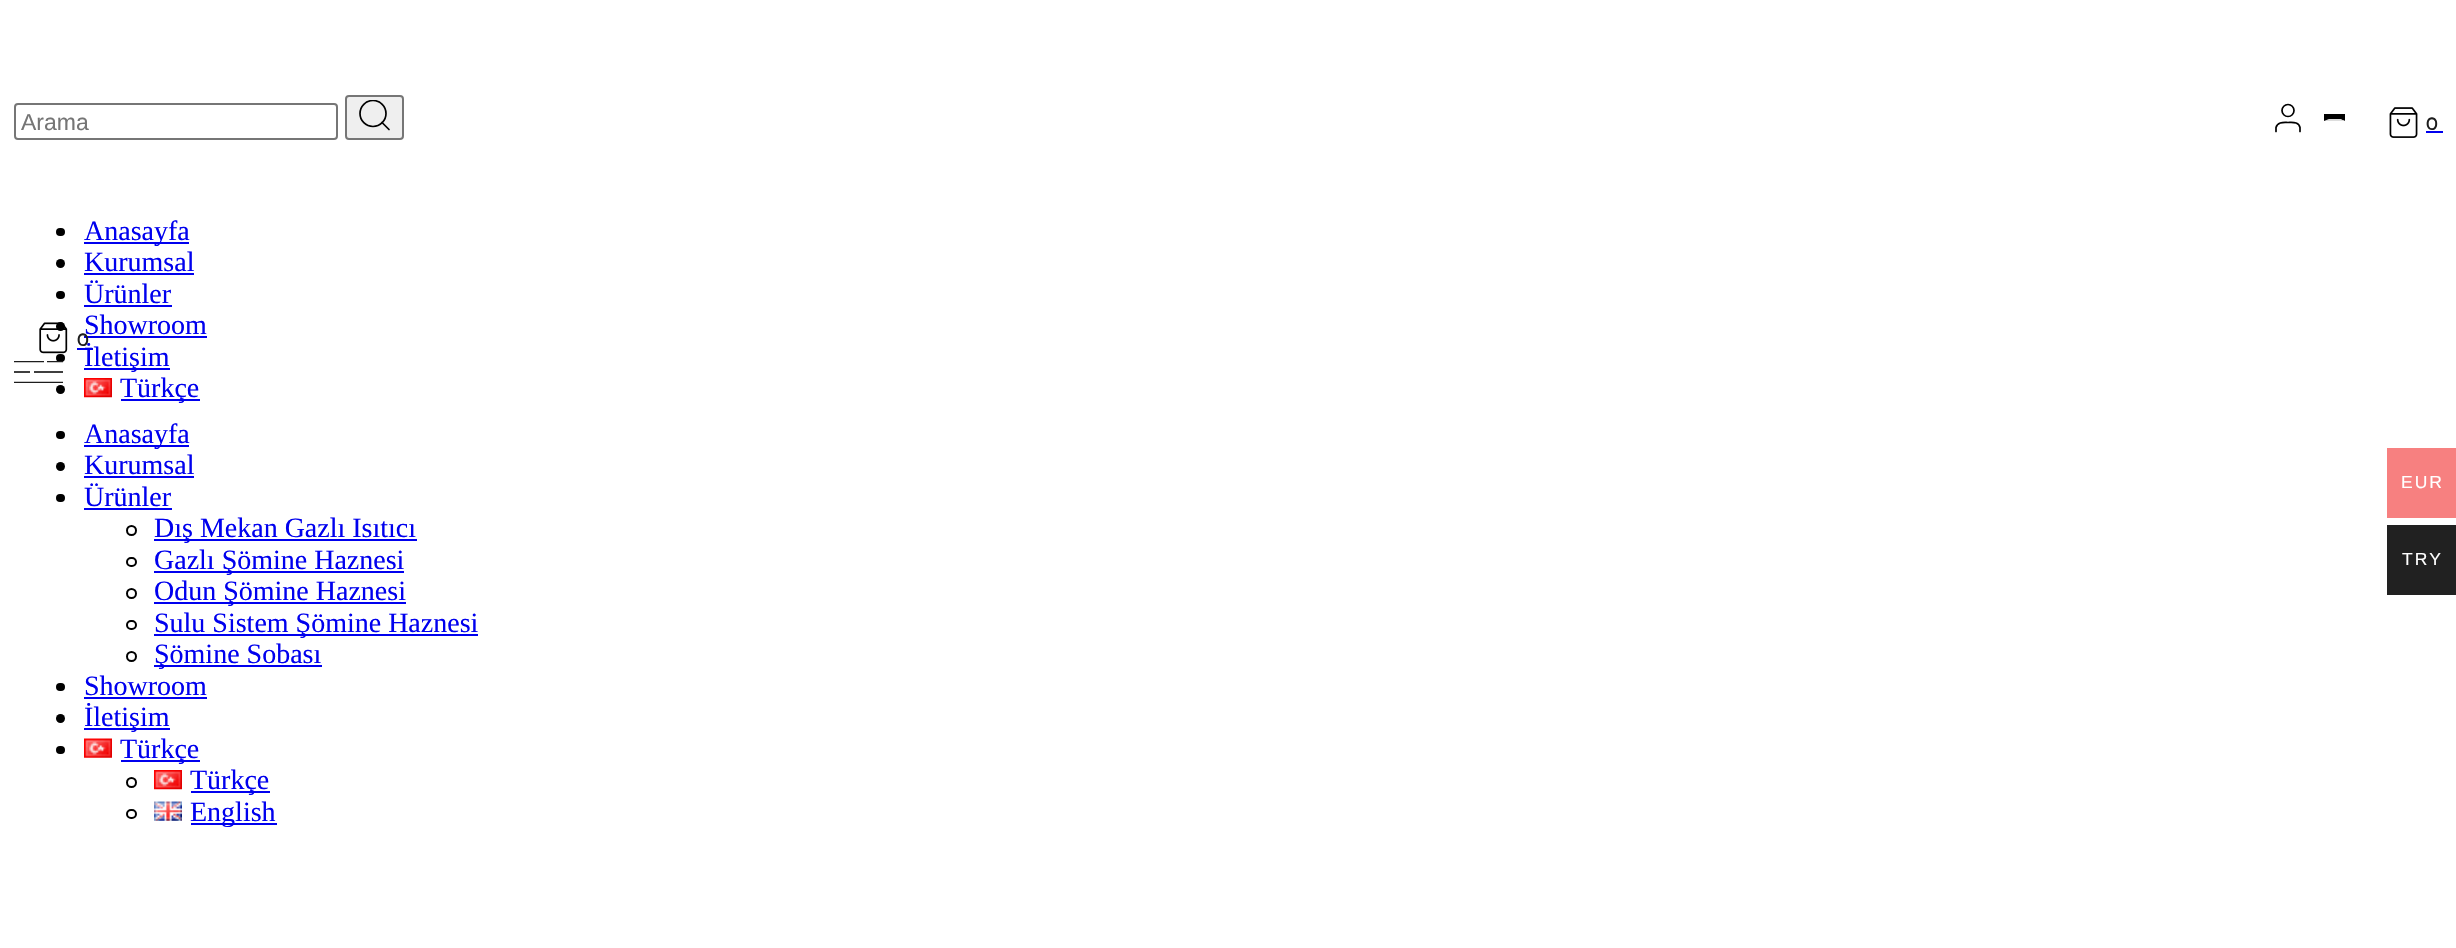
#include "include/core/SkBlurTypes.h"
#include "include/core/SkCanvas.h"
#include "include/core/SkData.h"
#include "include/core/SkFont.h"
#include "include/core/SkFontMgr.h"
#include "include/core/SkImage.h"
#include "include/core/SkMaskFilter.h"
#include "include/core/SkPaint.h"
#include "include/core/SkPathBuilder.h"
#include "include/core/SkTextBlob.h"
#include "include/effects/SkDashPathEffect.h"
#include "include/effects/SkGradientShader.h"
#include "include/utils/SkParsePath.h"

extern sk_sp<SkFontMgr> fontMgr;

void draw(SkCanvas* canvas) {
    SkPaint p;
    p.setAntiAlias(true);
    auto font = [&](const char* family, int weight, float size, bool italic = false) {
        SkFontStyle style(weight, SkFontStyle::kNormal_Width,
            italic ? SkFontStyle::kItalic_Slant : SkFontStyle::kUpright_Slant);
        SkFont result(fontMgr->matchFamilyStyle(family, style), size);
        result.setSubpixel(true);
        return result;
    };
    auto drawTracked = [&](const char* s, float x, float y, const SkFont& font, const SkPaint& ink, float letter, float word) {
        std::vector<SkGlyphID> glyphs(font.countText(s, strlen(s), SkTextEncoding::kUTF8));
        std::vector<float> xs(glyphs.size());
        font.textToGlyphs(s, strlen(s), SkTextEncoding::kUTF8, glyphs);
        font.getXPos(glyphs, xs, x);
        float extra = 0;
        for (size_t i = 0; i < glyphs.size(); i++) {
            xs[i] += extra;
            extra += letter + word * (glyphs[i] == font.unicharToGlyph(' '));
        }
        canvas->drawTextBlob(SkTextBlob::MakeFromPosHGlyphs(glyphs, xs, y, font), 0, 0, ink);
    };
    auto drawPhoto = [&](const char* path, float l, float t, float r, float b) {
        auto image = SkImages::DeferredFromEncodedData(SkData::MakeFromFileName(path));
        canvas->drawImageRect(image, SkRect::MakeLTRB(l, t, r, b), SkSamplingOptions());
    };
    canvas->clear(0xFFFFFFFF);
    p.setStyle(SkPaint::kStroke_Style);
    p.setStrokeWidth(2);
    p.setColor(0xFF767676);
    canvas->drawRoundRect(SkRect::MakeLTRB(15, 104, 337, 139), 3, 3, p);
    auto font1 = font("Liberation Sans", 400, 23);
    p.setStyle(SkPaint::kFill_Style);
    p.setColor(0xFF757575);
    canvas->drawString("Arama", 21, 130, font1, p);
    p.setColor(0xFFEFEFEF);
    canvas->drawRoundRect(SkRect::MakeLTRB(346, 96, 403, 139), 3, 3, p);
    p.setStyle(SkPaint::kStroke_Style);
    p.setColor(0xFF767676);
    canvas->drawRoundRect(SkRect::MakeLTRB(346, 96, 403, 139), 3, 3, p);
    canvas->save();
    canvas->clipRect(SkRect::MakeLTRB(359, 100, 390, 130));
    p.setStrokeWidth(1.7f);
    p.setColor(0xFF000000);
    canvas->drawCircle(373, 113.5f, 13, p);
    canvas->restore();
    p.setStrokeCap(SkPaint::kRound_Cap);
    p.setStrokeJoin(SkPaint::kRound_Join);
    canvas->drawPath(SkPathBuilder().moveTo(389, 129.5f).lineTo(382, 122.5f).detach(), p);
    canvas->drawPath(SkPathBuilder().moveTo(2300, 131.5f).lineTo(2300, 127.5f).cubicTo(2299, 121.5f, 2292.5f, 122.5f, 2288, 122.5f).cubicTo(2284, 122.5f, 2277.5f, 121.5f, 2276, 127.5f).lineTo(2276, 131.5f).detach(), p);
    p.setStrokeCap(SkPaint::kButt_Cap);
    p.setStrokeJoin(SkPaint::kMiter_Join);
    canvas->drawCircle(2288, 110.5f, 6, p);
    p.setStyle(SkPaint::kFill_Style);
    canvas->drawRect(SkRect::MakeLTRB(2324, 114, 2345, 119), p);
    canvas->drawPath(SkPathBuilder().moveTo(2345, 114).lineTo(2345, 121).lineTo(2340, 119).close().detach(), p);
    p.setColor(0xFFDDDDDD);
    canvas->drawPath(SkPathBuilder().moveTo(2345, 121).lineTo(2324, 121).lineTo(2329, 119).lineTo(2340, 119).close().detach(), p);
    p.setColor(0xFF000000);
    canvas->drawPath(SkPathBuilder().moveTo(2324, 121).lineTo(2324, 114).lineTo(2329, 119).close().detach(), p);
    drawPhoto("media/1.png", 2389, 107, 2418, 138);
    auto font2 = font("Josefin Sans", 400, 19);
    p.setColor(0xFF1D1D1D);
    drawTracked("0", 2426, 130, font2, p, 5, 0);
    p.setColor(0xFF0000EE);
    canvas->drawRect(SkRect::MakeLTRB(2426, 131, 2443, 133), p);
    p.setColor(0xFF000000);
    canvas->drawRoundRect(SkRect::MakeLTRB(56, 228, 65, 236), 4, 4, p);
    p.setColor(0xFF0000EE);
    canvas->drawRect(SkRect::MakeLTRB(84, 242, 189, 244), p);
    auto font3 = font("Liberation Serif", 400, 28);
    canvas->drawString("Anasayfa", 84, 240, font3, p);
    p.setColor(0xFF000000);
    canvas->drawCircle(60.5f, 263.5f, 4.5f, p);
    p.setColor(0xFF0000EE);
    canvas->drawString("Kurumsal", 84, 271, font3, p);
    canvas->drawRect(SkRect::MakeLTRB(84, 273, 194, 275), p);
    p.setColor(0xFF000000);
    canvas->drawRoundRect(SkRect::MakeLTRB(56, 291, 65, 299), 4, 4, p);
    p.setColor(0xFF0000EE);
    canvas->drawString("Ürünler", 84, 303, font3, p);
    canvas->drawRect(SkRect::MakeLTRB(84, 305, 172, 307), p);
    p.setColor(0xFF000000);
    canvas->drawCircle(60.5f, 326.5f, 4.5f, p);
    p.setColor(0xFF0000EE);
    canvas->drawString("Showroom", 84, 334, font3, p);
    canvas->drawRect(SkRect::MakeLTRB(84, 336, 207, 338), p);
    p.setColor(0xFF000000);
    canvas->drawRoundRect(SkRect::MakeLTRB(56, 354, 65, 362), 4, 4, p);
    p.setColor(0xFF0000EE);
    canvas->drawRect(SkRect::MakeLTRB(84, 368, 170, 370), p);
    canvas->drawString("İletişim", 84, 366, font3, p);
    p.setColor(0xFF000000);
    canvas->drawCircle(60.5f, 389.5f, 4.5f, p);
    drawPhoto("media/2.png", 84, 378, 112, 398);
    p.setColor(0xFF0000EE);
    canvas->drawRect(SkRect::MakeLTRB(121, 399, 200, 401), p);
    canvas->drawString("Türkçe", 120, 397, font3, p);
    drawPhoto("media/3.png", 39, 322, 68, 354);
    p.setColor(0xFF1D1D1D);
    drawTracked("0", 77, 346, font2, p, 5, 0);
    p.setColor(0xFF0000EE);
    canvas->drawRect(SkRect::MakeLTRB(77, 348, 93, 350), p);
    canvas->save();
    canvas->clipRect(SkRect::MakeLTRB(14, 361, 63, 383));
    p.setStyle(SkPaint::kStroke_Style);
    p.setColor(0xFF1D1D1D);
    canvas->drawPath(SkPathBuilder().moveTo(14, 361.5f).lineTo(44, 361.5f).moveTo(47, 361.5f).lineTo(63, 361.5f).detach(), p);
    canvas->restore();
    p.setStyle(SkPaint::kFill_Style);
    p.setColor(0xFF3F3F3F);
    canvas->drawRect(SkRect::MakeLTRB(14, 371, 30, 373), p);
    canvas->drawRect(SkRect::MakeLTRB(34, 371, 63, 373), p);
    canvas->save();
    canvas->clipRect(SkRect::MakeLTRB(14, 361, 63, 383));
    p.setStyle(SkPaint::kStroke_Style);
    p.setColor(0xFF1D1D1D);
    canvas->drawPath(SkPathBuilder().moveTo(63, 382.5f).lineTo(14, 382.5f).detach(), p);
    canvas->restore();
    p.setStyle(SkPaint::kFill_Style);
    p.setColor(0xFF000000);
    canvas->drawRoundRect(SkRect::MakeLTRB(56, 431, 65, 439), 4, 4, p);
    p.setColor(0xFF0000EE);
    canvas->drawRect(SkRect::MakeLTRB(84, 445, 189, 447), p);
    canvas->drawString("Anasayfa", 84, 443, font3, p);
    p.setColor(0xFF000000);
    canvas->drawCircle(60.5f, 466.5f, 4.5f, p);
    p.setColor(0xFF0000EE);
    canvas->drawString("Kurumsal", 84, 474, font3, p);
    canvas->drawRect(SkRect::MakeLTRB(84, 476, 194, 478), p);
    p.setColor(0xFF000000);
    canvas->drawRoundRect(SkRect::MakeLTRB(56, 494, 65, 502), 4, 4, p);
    p.setColor(0xFF0000EE);
    canvas->drawString("Ürünler", 84, 506, font3, p);
    canvas->drawRect(SkRect::MakeLTRB(84, 508, 172, 510), p);
    p.setStyle(SkPaint::kStroke_Style);
    p.setStrokeWidth(2);
    p.setColor(0xFF000000);
    canvas->drawCircle(131.5f, 530.5f, 4.5f, p);
    p.setStyle(SkPaint::kFill_Style);
    p.setColor(0xFF0000EE);
    canvas->drawRect(SkRect::MakeLTRB(154, 539, 417, 541), p);
    canvas->drawString("Dış Mekan Gazlı Isıtıcı", 154, 537, font3, p);
    p.setStyle(SkPaint::kStroke_Style);
    p.setColor(0xFF000000);
    canvas->drawRoundRect(SkRect::MakeLTRB(127, 558, 136, 566), 4, 4, p);
    p.setStyle(SkPaint::kFill_Style);
    p.setColor(0xFF0000EE);
    canvas->drawRect(SkRect::MakeLTRB(154, 571, 404, 573), p);
    canvas->drawString("Gazlı Şömine Haznesi", 154, 569, font3, p);
    p.setStyle(SkPaint::kStroke_Style);
    p.setColor(0xFF000000);
    canvas->drawCircle(131.5f, 593.5f, 4.5f, p);
    p.setStyle(SkPaint::kFill_Style);
    p.setColor(0xFF0000EE);
    canvas->drawRect(SkRect::MakeLTRB(154, 602, 406, 604), p);
    canvas->drawString("Odun Şömine Haznesi", 154, 600, font3, p);
    p.setStyle(SkPaint::kStroke_Style);
    p.setColor(0xFF000000);
    canvas->drawRoundRect(SkRect::MakeLTRB(127, 621, 136, 629), 4, 4, p);
    p.setStyle(SkPaint::kFill_Style);
    p.setColor(0xFF0000EE);
    canvas->drawRect(SkRect::MakeLTRB(154, 634, 478, 636), p);
    canvas->drawString("Sulu Sistem Şömine Haznesi", 154, 632, font3, p);
    p.setStyle(SkPaint::kStroke_Style);
    p.setColor(0xFF000000);
    canvas->drawCircle(131.5f, 656.5f, 4.5f, p);
    p.setStyle(SkPaint::kFill_Style);
    p.setColor(0xFF0000EE);
    canvas->drawRect(SkRect::MakeLTRB(154, 665, 322, 667), p);
    canvas->drawString("Şömine Sobası", 154, 663, font3, p);
    p.setColor(0xFF000000);
    canvas->drawRoundRect(SkRect::MakeLTRB(56, 683, 65, 691), 4, 4, p);
    p.setColor(0xFF0000EE);
    canvas->drawString("Showroom", 84, 695, font3, p);
    canvas->drawRect(SkRect::MakeLTRB(84, 697, 207, 699), p);
    p.setColor(0xFF000000);
    canvas->drawCircle(60.5f, 718.5f, 4.5f, p);
    p.setColor(0xFF0000EE);
    canvas->drawRect(SkRect::MakeLTRB(84, 728, 170, 730), p);
    canvas->drawString("İletişim", 84, 726, font3, p);
    p.setColor(0xFF000000);
    canvas->drawRoundRect(SkRect::MakeLTRB(56, 746, 65, 754), 4, 4, p);
    drawPhoto("media/4.png", 84, 738, 112, 758);
    p.setColor(0xFF0000EE);
    canvas->drawRect(SkRect::MakeLTRB(121, 760, 200, 762), p);
    canvas->drawString("Türkçe", 120, 758, font3, p);
    p.setStyle(SkPaint::kStroke_Style);
    p.setColor(0xFF000000);
    canvas->drawCircle(131.5f, 782.5f, 4.5f, p);
    drawPhoto("media/2.png", 154, 770, 182, 790);
    p.setStyle(SkPaint::kFill_Style);
    p.setColor(0xFF0000EE);
    canvas->drawRect(SkRect::MakeLTRB(191, 791, 270, 793), p);
    canvas->drawString("Türkçe", 190, 789, font3, p);
    p.setStyle(SkPaint::kStroke_Style);
    p.setColor(0xFF000000);
    canvas->drawRoundRect(SkRect::MakeLTRB(127, 810, 136, 818), 4, 4, p);
    drawPhoto("media/5.png", 154, 801, 182, 821);
    p.setStyle(SkPaint::kFill_Style);
    p.setColor(0xFF0000EE);
    canvas->drawRect(SkRect::MakeLTRB(191, 823, 277, 825), p);
    canvas->drawString("English", 190, 821, font3, p);
    p.setColor(0xFFF78080);
    canvas->drawRect(SkRect::MakeLTRB(2387, 448, 2456, 518), p);
    auto font4 = font("Liberation Sans", 400, 17.5f);
    p.setColor(0xFFFFFFFF);
    drawTracked("EUR", 2401, 488, font4, p, 2, 0);
    p.setColor(0xFF212121);
    canvas->drawRect(SkRect::MakeLTRB(2387, 525, 2456, 595), p);
    p.setColor(0xFFFFFFFF);
    drawTracked("TRY", 2402, 565, font4, p, 2, 0);
}
